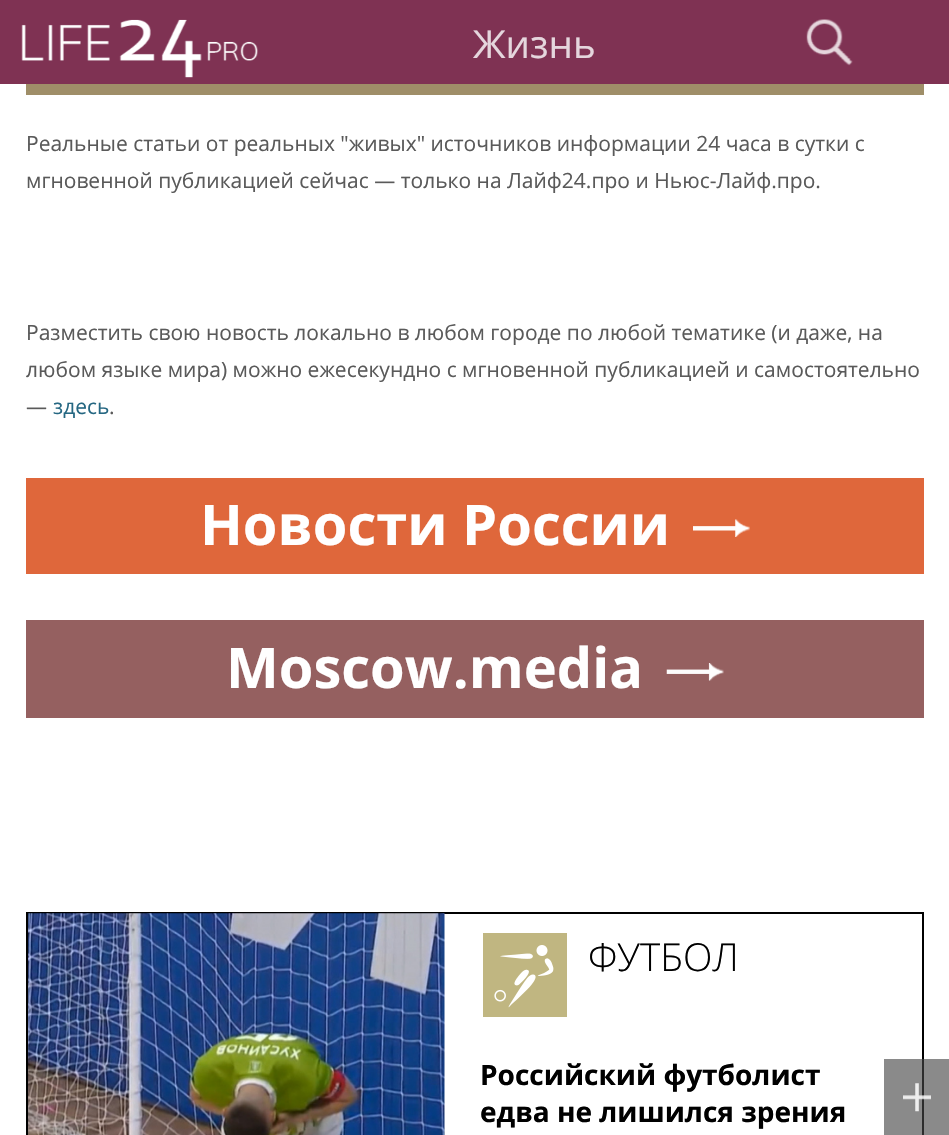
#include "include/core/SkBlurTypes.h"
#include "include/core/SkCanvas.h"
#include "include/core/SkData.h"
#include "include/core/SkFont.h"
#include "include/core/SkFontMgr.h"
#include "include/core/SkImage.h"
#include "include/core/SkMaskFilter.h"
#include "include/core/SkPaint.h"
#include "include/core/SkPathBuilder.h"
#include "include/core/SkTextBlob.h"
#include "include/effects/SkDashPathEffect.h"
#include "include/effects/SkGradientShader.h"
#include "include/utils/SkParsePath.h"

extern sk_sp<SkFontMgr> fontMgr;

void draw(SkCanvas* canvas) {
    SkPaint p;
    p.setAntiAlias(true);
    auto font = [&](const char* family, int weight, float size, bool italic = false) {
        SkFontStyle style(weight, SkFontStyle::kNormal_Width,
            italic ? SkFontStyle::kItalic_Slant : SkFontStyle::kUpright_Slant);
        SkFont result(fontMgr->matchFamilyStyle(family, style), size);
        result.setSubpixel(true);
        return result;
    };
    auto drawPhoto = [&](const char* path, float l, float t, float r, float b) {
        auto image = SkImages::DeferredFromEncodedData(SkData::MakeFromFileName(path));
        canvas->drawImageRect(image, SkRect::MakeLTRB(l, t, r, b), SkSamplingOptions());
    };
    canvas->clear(0xFFFFFFFF);
    p.setColor(0xFF7F3253);
    canvas->drawRect(SkRect::MakeLTRB(0, 0, 949, 84), p);
    drawPhoto("media/1.png", 21, 19, 258, 78);
    auto font1 = font("Open Sans", 400, 38.5f);
    p.setColor(0xFFE5D6DD);
    canvas->drawString("Жизнь", 473, 58, font1, p);
    drawPhoto("media/2.png", 806, 19, 853, 66);
    p.setColor(0xFF9F8E68);
    canvas->drawRect(SkRect::MakeLTRB(26, 84, 924, 95), p);
    auto font2 = font("Open Sans", 400, 21);
    p.setColor(0xFF5A5A5A);
    {
        const struct { const char* s; float x, y; } items[] = {
            {"Реальные статьи от реальных \"живых\" источников информации 24 часа в сутки с", 26, 151},
            {"мгновенной публикацией сейчас — только на Лайф24.про и Ньюс-Лайф.про.", 26, 188},
            {"Разместить свою новость локально в любом городе по любой тематике (и даже, на", 26, 340},
            {"любом языке мира) можно ежесекундно с мгновенной публикацией и самостоятельно", 26, 377},
            {"—", 26, 414},
        };
        for (auto [s, x, y] : items) {
            canvas->drawString(s, x, y, font2, p);
        }
    }
    p.setColor(0xFF256782);
    canvas->drawString("здесь", 53, 414, font2, p);
    p.setColor(0xFF5A5A5A);
    canvas->drawString(".", 109, 414, font2, p);
    p.setColor(0xFFDF673B);
    canvas->drawRect(SkRect::MakeLTRB(26, 478, 924, 574), p);
    auto font3 = font("Open Sans", 700, 56);
    p.setColor(0xFFFFFFFF);
    canvas->drawString("Новости России", 200, 545, font3, p);
    drawPhoto("media/3.png", 693, 519, 750, 537);
    p.setColor(0xFF956060);
    canvas->drawRect(SkRect::MakeLTRB(26, 620, 924, 718), p);
    p.setColor(0xFFFFFFFF);
    canvas->drawString("Moscow.media", 226, 688, font3, p);
    drawPhoto("media/4.png", 666, 663, 724, 681);
    p.setStyle(SkPaint::kStroke_Style);
    p.setStrokeWidth(2);
    p.setColor(0xFF000000);
    canvas->drawRect(SkRect::MakeLTRB(27, 913, 923, 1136), p);
    p.setStyle(SkPaint::kFill_Style);
    p.setColor(0xFFC0B681);
    canvas->drawRect(SkRect::MakeLTRB(483, 933, 567, 1017), p);
    drawPhoto("media/5.png", 494, 945, 554, 1008);
    auto font4 = font("Open Sans", 300, 38.5f);
    p.setColor(0xFF000000);
    canvas->drawString("ФУТБОЛ", 588, 971, font4, p);
    drawPhoto("media/6.png", 28, 913, 445, 1135);
    auto font5 = font("Open Sans", 700, 28);
    canvas->drawString("Российский футболист", 480, 1085, font5, p);
    canvas->drawString("едва не лишился зрения", 480, 1122, font5, p);
    p.setColor(0xA1464646);
    canvas->drawRect(SkRect::MakeLTRB(884, 1059, 949, 1135), p);
    drawPhoto("media/7.png", 903, 1083, 931, 1112);
}
